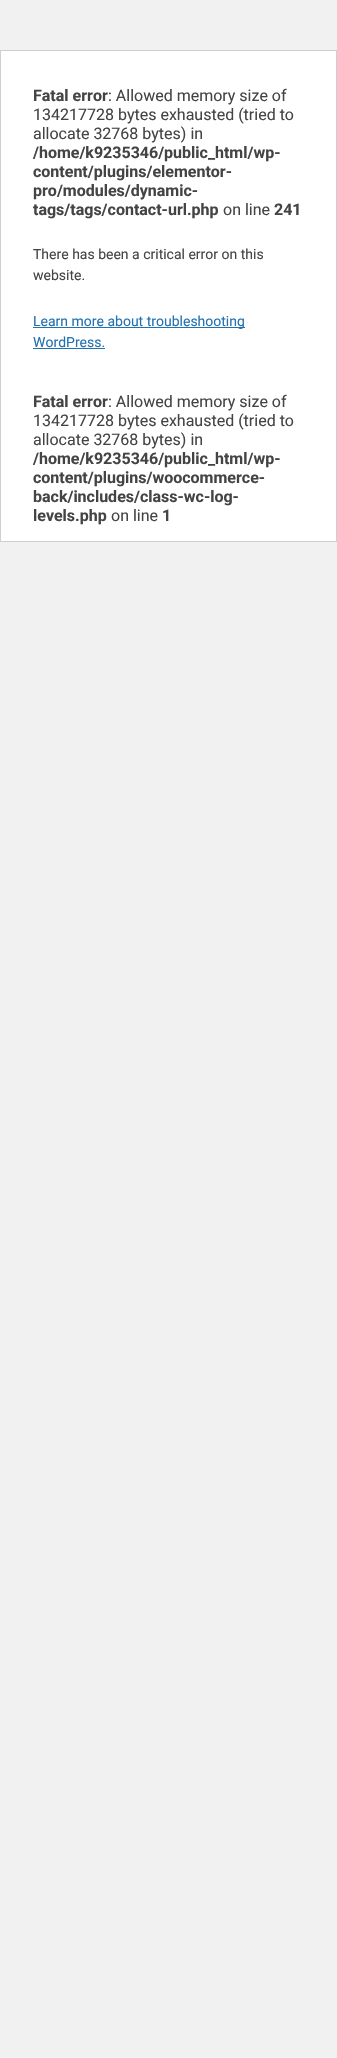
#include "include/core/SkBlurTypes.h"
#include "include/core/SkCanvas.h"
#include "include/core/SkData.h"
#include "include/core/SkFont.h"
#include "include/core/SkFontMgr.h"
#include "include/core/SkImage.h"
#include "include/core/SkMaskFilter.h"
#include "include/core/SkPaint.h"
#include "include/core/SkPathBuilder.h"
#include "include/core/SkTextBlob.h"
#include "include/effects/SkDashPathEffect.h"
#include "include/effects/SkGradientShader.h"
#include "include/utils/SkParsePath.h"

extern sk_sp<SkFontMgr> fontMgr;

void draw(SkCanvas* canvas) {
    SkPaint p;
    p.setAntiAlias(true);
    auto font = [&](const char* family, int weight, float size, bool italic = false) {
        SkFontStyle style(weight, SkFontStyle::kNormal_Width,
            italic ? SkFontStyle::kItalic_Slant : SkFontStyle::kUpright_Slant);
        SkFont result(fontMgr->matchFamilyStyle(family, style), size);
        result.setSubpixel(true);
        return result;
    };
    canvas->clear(0xFFF1F1F1);
    p.setColor(0xFFFFFFFF);
    canvas->drawRect(SkRect::MakeLTRB(0.5f, 50.5f, 336.5f, 541.5f), p);
    p.setStyle(SkPaint::kStroke_Style);
    p.setStrokeWidth(1);
    p.setColor(0xFFCCD0D4);
    canvas->drawRect(SkRect::MakeLTRB(0.5f, 50.5f, 336.5f, 541.5f), p);
    auto font1 = font("Roboto", 700, 16);
    p.setStyle(SkPaint::kFill_Style);
    p.setColor(0xFF444444);
    canvas->drawString("Fatal error", 33, 101, font1, p);
    auto font2 = font("Roboto", 400, 16);
    {
        const struct { const char* s; float x, y; } items[] = {
            {": Allowed memory size of", 108, 101},
            {"134217728 bytes exhausted (tried to", 33, 120},
            {"allocate 32768 bytes) in", 33, 139},
        };
        for (auto [s, x, y] : items) {
            canvas->drawString(s, x, y, font2, p);
        }
    }
    {
        const struct { const char* s; float x, y; } items[] = {
            {"/home/k9235346/public_html/wp-", 33, 158},
            {"content/plugins/elementor-", 33, 177},
            {"pro/modules/dynamic-", 33, 196},
            {"tags/tags/contact-url.php", 33, 215},
        };
        for (auto [s, x, y] : items) {
            canvas->drawString(s, x, y, font1, p);
        }
    }
    canvas->drawString("on line", 223, 215, font2, p);
    canvas->drawString("241", 274, 215, font1, p);
    auto font3 = font("Roboto", 400, 14);
    canvas->drawString("There has been a critical error on this", 33, 259, font3, p);
    canvas->drawString("website.", 33, 280, font3, p);
    p.setColor(0xFF2271B1);
    canvas->drawRect(SkRect::MakeLTRB(33, 327, 245, 328), p);
    canvas->drawString("Learn more about troubleshooting", 33, 326, font3, p);
    canvas->drawString("WordPress.", 33, 347, font3, p);
    canvas->drawRect(SkRect::MakeLTRB(33, 348, 105, 349), p);
    p.setColor(0xFF444444);
    canvas->drawString("Fatal error", 33, 407, font1, p);
    {
        const struct { const char* s; float x, y; } items[] = {
            {": Allowed memory size of", 108, 407},
            {"134217728 bytes exhausted (tried to", 33, 426},
            {"allocate 32768 bytes) in", 33, 445},
        };
        for (auto [s, x, y] : items) {
            canvas->drawString(s, x, y, font2, p);
        }
    }
    {
        const struct { const char* s; float x, y; } items[] = {
            {"/home/k9235346/public_html/wp-", 33, 464},
            {"content/plugins/woocommerce-", 33, 483},
            {"back/includes/class-wc-log-", 33, 502},
            {"levels.php", 33, 521},
        };
        for (auto [s, x, y] : items) {
            canvas->drawString(s, x, y, font1, p);
        }
    }
    canvas->drawString("on line", 111, 521, font2, p);
    canvas->drawString("1", 162, 521, font1, p);
}
